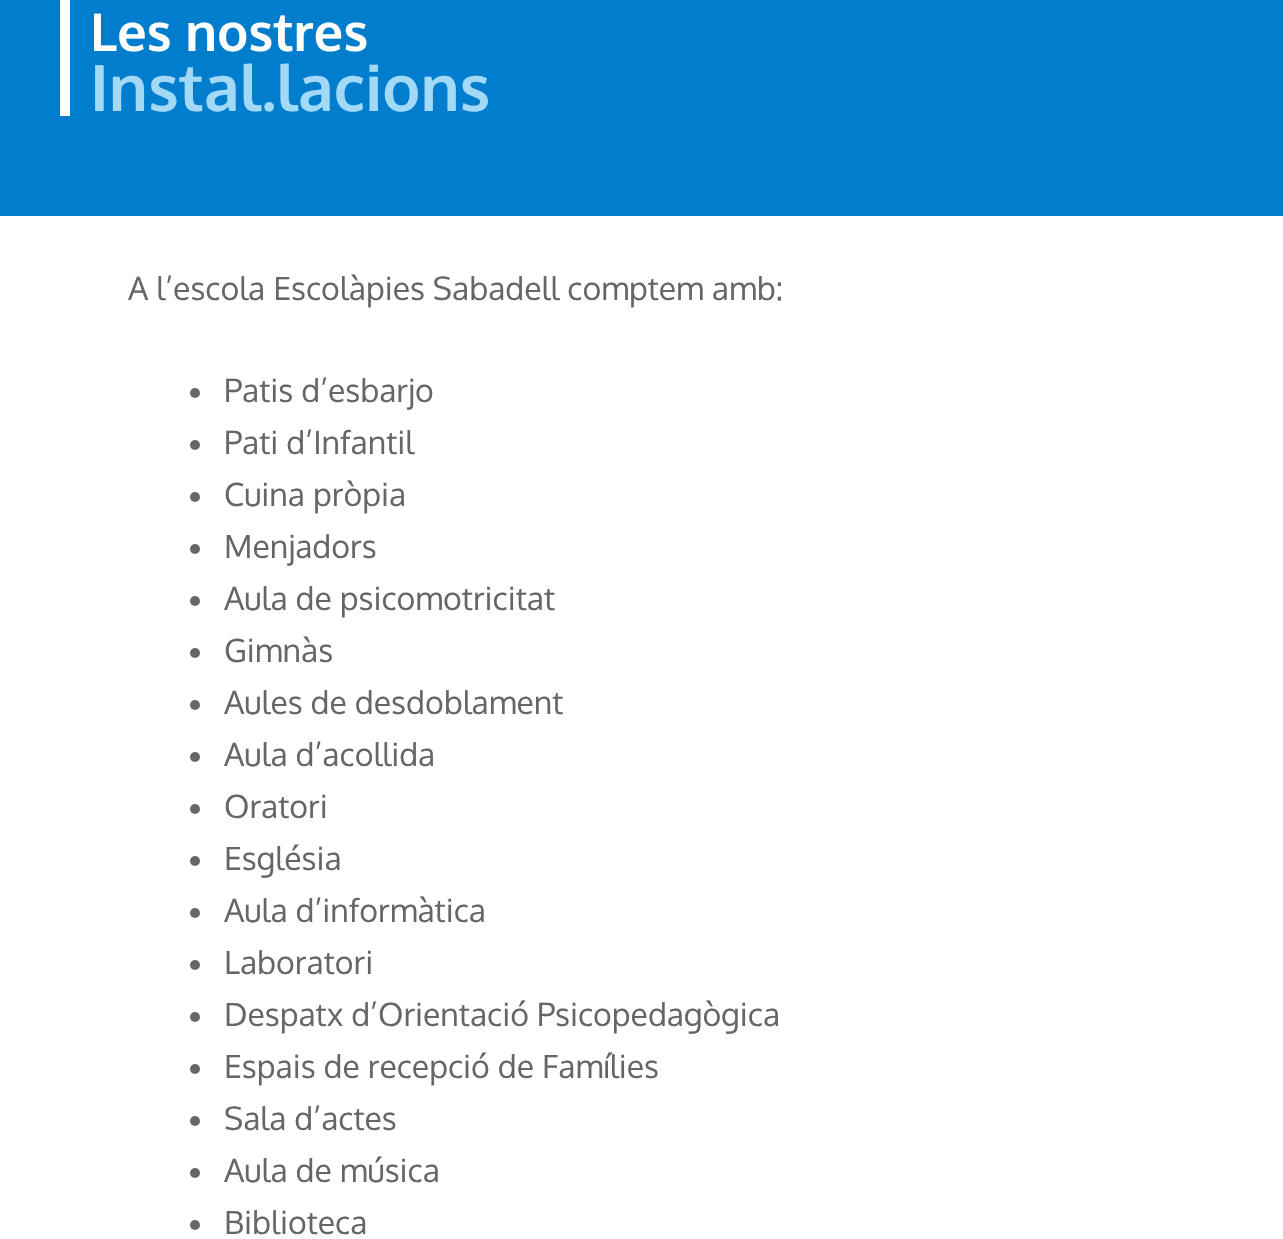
#include "include/core/SkBlurTypes.h"
#include "include/core/SkCanvas.h"
#include "include/core/SkData.h"
#include "include/core/SkFont.h"
#include "include/core/SkFontMgr.h"
#include "include/core/SkImage.h"
#include "include/core/SkMaskFilter.h"
#include "include/core/SkPaint.h"
#include "include/core/SkPathBuilder.h"
#include "include/core/SkTextBlob.h"
#include "include/effects/SkDashPathEffect.h"
#include "include/effects/SkGradientShader.h"
#include "include/utils/SkParsePath.h"

extern sk_sp<SkFontMgr> fontMgr;

void draw(SkCanvas* canvas) {
    SkPaint p;
    p.setAntiAlias(true);
    auto font = [&](const char* family, int weight, float size, bool italic = false) {
        SkFontStyle style(weight, SkFontStyle::kNormal_Width,
            italic ? SkFontStyle::kItalic_Slant : SkFontStyle::kUpright_Slant);
        SkFont result(fontMgr->matchFamilyStyle(family, style), size);
        result.setSubpixel(true);
        return result;
    };
    canvas->clear(0xFFFFFFFF);
    p.setColor(0xFF007DCD);
    canvas->drawRect(SkRect::MakeLTRB(0, 0, 1283, 216), p);
    p.setColor(0xFFFFFFFF);
    canvas->drawRect(SkRect::MakeLTRB(60, 0, 70, 116), p);
    auto font1 = font("Oxygen", 700, 52);
    canvas->drawString("Les nostres", 90, 51, font1, p);
    auto font2 = font("Oxygen", 700, 64);
    p.setColor(0xFFA2D9F7);
    canvas->drawString("Instal.lacions", 90, 111, font2, p);
    auto font3 = font("Oxygen", 400, 32);
    p.setColor(0xFF666666);
    canvas->drawString("A l’escola Escolàpies Sabadell comptem amb:", 128, 300, font3, p);
    canvas->drawCircle(195, 393, 5, p);
    canvas->drawString("Patis d’esbarjo", 224, 402, font3, p);
    canvas->drawCircle(195, 445, 5, p);
    canvas->drawString("Pati d’Infantil", 224, 454, font3, p);
    canvas->drawCircle(195, 497, 5, p);
    canvas->drawString("Cuina pròpia", 224, 506, font3, p);
    canvas->drawCircle(195, 549, 5, p);
    canvas->drawString("Menjadors", 224, 558, font3, p);
    canvas->drawCircle(195, 601, 5, p);
    canvas->drawString("Aula de psicomotricitat", 224, 610, font3, p);
    canvas->drawCircle(195, 653, 5, p);
    canvas->drawString("Gimnàs", 224, 662, font3, p);
    canvas->drawCircle(195, 705, 5, p);
    canvas->drawString("Aules de desdoblament", 224, 714, font3, p);
    canvas->drawCircle(195, 757, 5, p);
    canvas->drawString("Aula d’acollida", 224, 766, font3, p);
    canvas->drawCircle(195, 809, 5, p);
    canvas->drawString("Oratori", 224, 818, font3, p);
    canvas->drawCircle(195, 861, 5, p);
    canvas->drawString("Església", 224, 870, font3, p);
    canvas->drawCircle(195, 913, 5, p);
    canvas->drawString("Aula d’informàtica", 224, 922, font3, p);
    canvas->drawCircle(195, 965, 5, p);
    canvas->drawString("Laboratori", 224, 974, font3, p);
    canvas->drawCircle(195, 1017, 5, p);
    canvas->drawString("Despatx d’Orientació Psicopedagògica", 224, 1026, font3, p);
    canvas->drawCircle(195, 1069, 5, p);
    canvas->drawString("Espais de recepció de Famílies", 224, 1078, font3, p);
    canvas->drawCircle(195, 1121, 5, p);
    canvas->drawString("Sala d’actes", 224, 1130, font3, p);
    canvas->drawCircle(195, 1173, 5, p);
    canvas->drawString("Aula de música", 224, 1182, font3, p);
    canvas->drawCircle(195, 1225, 5, p);
    canvas->drawString("Biblioteca", 224, 1234, font3, p);
}
